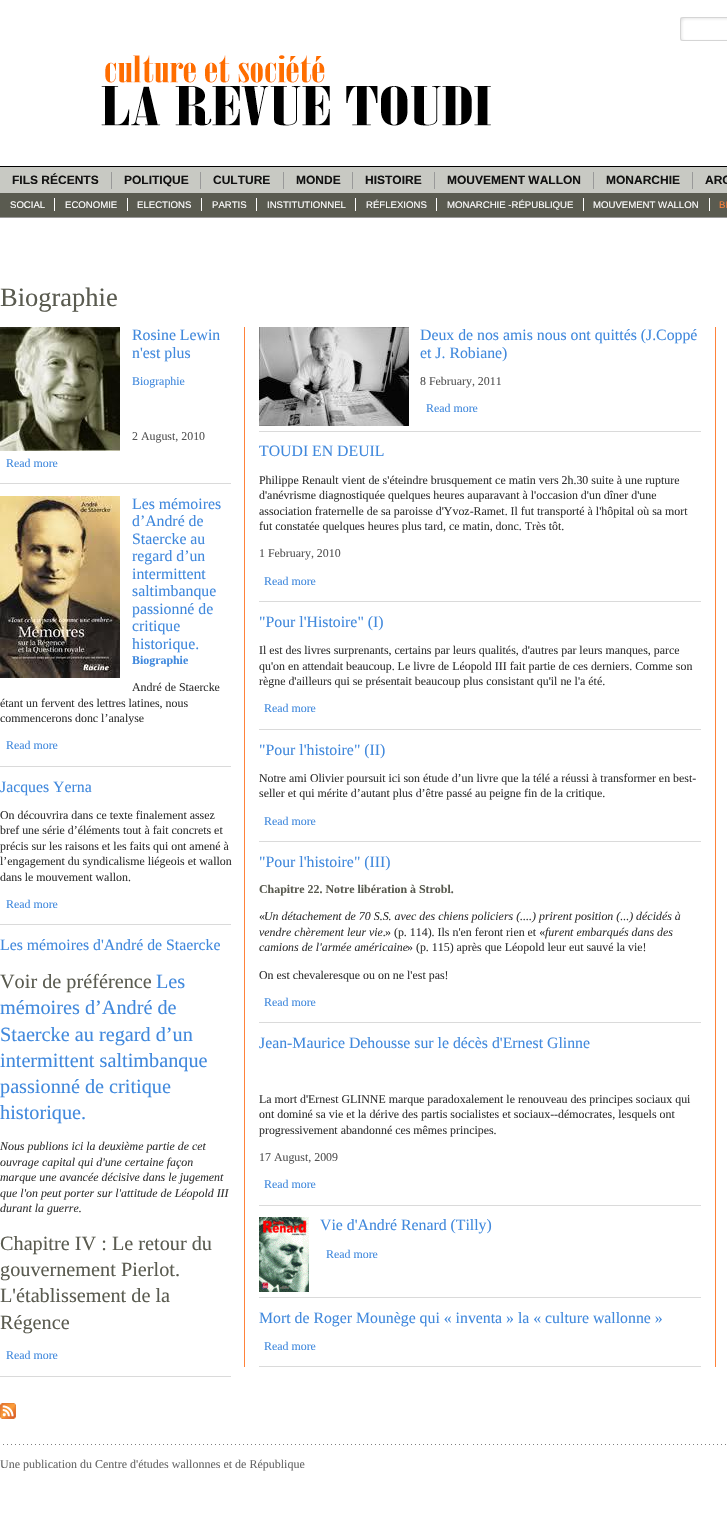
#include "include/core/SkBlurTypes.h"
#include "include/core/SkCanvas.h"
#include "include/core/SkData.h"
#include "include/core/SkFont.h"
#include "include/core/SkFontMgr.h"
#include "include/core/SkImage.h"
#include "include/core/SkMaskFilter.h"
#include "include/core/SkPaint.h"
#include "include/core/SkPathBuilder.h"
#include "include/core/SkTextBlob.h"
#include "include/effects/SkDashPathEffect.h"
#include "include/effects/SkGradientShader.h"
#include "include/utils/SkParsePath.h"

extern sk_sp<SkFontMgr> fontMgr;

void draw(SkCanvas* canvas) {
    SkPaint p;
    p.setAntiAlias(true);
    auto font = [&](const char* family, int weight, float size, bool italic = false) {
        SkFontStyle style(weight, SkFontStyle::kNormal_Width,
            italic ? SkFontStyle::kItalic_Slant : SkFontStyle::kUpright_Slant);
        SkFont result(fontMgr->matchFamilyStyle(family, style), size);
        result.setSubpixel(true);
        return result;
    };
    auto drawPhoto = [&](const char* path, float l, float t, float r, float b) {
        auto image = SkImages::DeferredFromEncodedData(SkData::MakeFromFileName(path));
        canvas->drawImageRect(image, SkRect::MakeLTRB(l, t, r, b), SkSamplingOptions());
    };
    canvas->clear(0xFFFFFFFF);
    drawPhoto("media/1.png", 680, 17, 727, 41);
    drawPhoto("media/2.png", 101, 55, 491, 126);
    {
        const struct { float l, t, r, b; SkColor color; } items[] = {
            {0, 217, 727, 218, 0xFF999999},
            {0, 167, 727, 193, 0xFFC8C9C3},
            {0, 166, 727, 167, 0xFF000000},
            {111, 172, 112, 189, 0xFF999999},
        };
        for (auto [l, t, r, b, color] : items) {
            p.setColor(color);
            canvas->drawRect(SkRect::MakeLTRB(l, t, r, b), p);
        }
    }
    auto font1 = font("Liberation Sans", 700, 12);
    p.setColor(0xFF111111);
    canvas->drawString("FILS RÉCENTS", 12, 184, font1, p);
    p.setColor(0xFF999999);
    canvas->drawRect(SkRect::MakeLTRB(200, 172, 201, 189), p);
    p.setColor(0xFF111111);
    canvas->drawString("POLITIQUE", 124, 184, font1, p);
    p.setColor(0xFF999999);
    canvas->drawRect(SkRect::MakeLTRB(283, 172, 284, 189), p);
    p.setColor(0xFF111111);
    canvas->drawString("CULTURE", 213, 184, font1, p);
    p.setColor(0xFF999999);
    canvas->drawRect(SkRect::MakeLTRB(352, 172, 353, 189), p);
    p.setColor(0xFF111111);
    canvas->drawString("MONDE", 296, 184, font1, p);
    p.setColor(0xFF999999);
    canvas->drawRect(SkRect::MakeLTRB(434, 172, 435, 189), p);
    p.setColor(0xFF111111);
    canvas->drawString("HISTOIRE", 365, 184, font1, p);
    p.setColor(0xFF999999);
    canvas->drawRect(SkRect::MakeLTRB(593, 172, 594, 189), p);
    p.setColor(0xFF111111);
    canvas->drawString("MOUVEMENT WALLON", 447, 184, font1, p);
    p.setColor(0xFF999999);
    canvas->drawRect(SkRect::MakeLTRB(692, 172, 693, 189), p);
    p.setColor(0xFF111111);
    canvas->drawString("MONARCHIE", 606, 184, font1, p);
    canvas->drawString("ARC", 705, 184, font1, p);
    p.setColor(0xFF5A5B50);
    canvas->drawRect(SkRect::MakeLTRB(0, 193, 727, 217), p);
    p.setColor(0xFFFFFFFF);
    canvas->drawRect(SkRect::MakeLTRB(54, 198, 55, 211), p);
    auto font2 = font("Liberation Sans", 400, 9.6f);
    canvas->drawString("SOCIAL", 10, 208, font2, p);
    canvas->drawRect(SkRect::MakeLTRB(127, 198, 128, 211), p);
    canvas->drawString("ECONOMIE", 65, 208, font2, p);
    canvas->drawRect(SkRect::MakeLTRB(201, 198, 202, 211), p);
    canvas->drawString("ELECTIONS", 137, 208, font2, p);
    canvas->drawRect(SkRect::MakeLTRB(256, 198, 257, 211), p);
    canvas->drawString("PARTIS", 212, 208, font2, p);
    canvas->drawRect(SkRect::MakeLTRB(355, 198, 356, 211), p);
    canvas->drawString("INSTITUTIONNEL", 267, 208, font2, p);
    canvas->drawRect(SkRect::MakeLTRB(436, 198, 437, 211), p);
    canvas->drawString("RÉFLEXIONS", 366, 208, font2, p);
    canvas->drawRect(SkRect::MakeLTRB(583, 198, 584, 211), p);
    canvas->drawString("MONARCHIE -RÉPUBLIQUE", 447, 208, font2, p);
    canvas->drawRect(SkRect::MakeLTRB(709, 198, 710, 211), p);
    canvas->drawString("MOUVEMENT WALLON", 593, 208, font2, p);
    p.setColor(0xFFFF823A);
    canvas->drawString("BI", 719, 208, font2, p);
    auto font3 = font("Liberation Serif", 400, 26.5f);
    p.setColor(0xFF5A5B50);
    canvas->drawString("Biographie", 0, 306, font3, p);
    p.setColor(0xFFDADADA);
    canvas->drawRect(SkRect::MakeLTRB(0, 483, 231, 484), p);
    drawPhoto("media/3.png", 0, 327, 120, 451);
    auto font4 = font("Liberation Serif", 400, 15.8f);
    p.setColor(0xFF4189DD);
    canvas->drawString("Rosine Lewin", 132, 340, font4, p);
    canvas->drawString("n'est plus", 132, 358, font4, p);
    auto font5 = font("Liberation Serif", 400, 11.9f);
    canvas->drawString("Biographie", 132, 385, font5, p);
    p.setColor(0xFF555555);
    canvas->drawString("2 August, 2010", 132, 440, font5, p);
    p.setColor(0xFF4189DD);
    canvas->drawString("Read more", 6, 467, font5, p);
    p.setColor(0xFFDADADA);
    canvas->drawRect(SkRect::MakeLTRB(0, 766, 231, 767), p);
    drawPhoto("media/4.png", 0, 496, 120, 678);
    p.setColor(0xFF4189DD);
    {
        const struct { const char* s; float x, y; } items[] = {
            {"Les mémoires", 132, 509},
            {"d’André de", 132, 526},
            {"Staercke au", 132, 544},
            {"regard d’un", 132, 561},
            {"intermittent", 132, 579},
            {"saltimbanque", 132, 596},
            {"passionné de", 132, 614},
            {"critique", 132, 631},
            {"historique.", 132, 649},
        };
        for (auto [s, x, y] : items) {
            canvas->drawString(s, x, y, font4, p);
        }
    }
    auto font6 = font("Liberation Serif", 700, 11.9f);
    canvas->drawString("Biographie", 132, 664, font6, p);
    p.setColor(0xFF333333);
    {
        const struct { const char* s; float x, y; } items[] = {
            {"André de Staercke", 132, 691},
            {"étant un fervent des lettres latines, nous", 0, 707},
            {"commencerons donc l’analyse", 0, 722},
        };
        for (auto [s, x, y] : items) {
            canvas->drawString(s, x, y, font5, p);
        }
    }
    p.setColor(0xFF4189DD);
    canvas->drawString("Read more", 6, 749, font5, p);
    p.setColor(0xFFDADADA);
    canvas->drawRect(SkRect::MakeLTRB(0, 924, 231, 925), p);
    p.setColor(0xFF4189DD);
    canvas->drawString("Jacques Yerna", 0, 792, font4, p);
    p.setColor(0xFF333333);
    {
        const struct { const char* s; float x, y; } items[] = {
            {"On découvrira dans ce texte finalement assez", 0, 819},
            {"bref une série d’éléments tout à fait concrets et", 0, 834},
            {"précis sur les raisons et les faits qui ont amené à", 0, 850},
            {"l’engagement du syndicalisme liégeois et wallon", 0, 865},
            {"dans le mouvement wallon.", 0, 881},
        };
        for (auto [s, x, y] : items) {
            canvas->drawString(s, x, y, font5, p);
        }
    }
    p.setColor(0xFF4189DD);
    canvas->drawString("Read more", 6, 908, font5, p);
    p.setColor(0xFFDADADA);
    canvas->drawRect(SkRect::MakeLTRB(0, 1376, 231, 1377), p);
    p.setColor(0xFF4189DD);
    canvas->drawString("Les mémoires d'André de Staercke", 0, 950, font4, p);
    auto font7 = font("Liberation Serif", 400, 20.25f);
    p.setColor(0xFF5A5B50);
    canvas->drawString("Voir de préférence", 0, 988, font7, p);
    p.setColor(0xFF4189DD);
    {
        const struct { const char* s; float x, y; } items[] = {
            {"Les", 156, 988},
            {"mémoires d’André de", 0, 1014},
            {"Staercke au regard d’un", 0, 1041},
            {"intermittent saltimbanque", 0, 1067},
            {"passionné de critique", 0, 1093},
            {"historique.", 0, 1119},
        };
        for (auto [s, x, y] : items) {
            canvas->drawString(s, x, y, font7, p);
        }
    }
    auto font8 = font("Liberation Serif", 400, 11.9f, true);
    p.setColor(0xFF333333);
    {
        const struct { const char* s; float x, y; } items[] = {
            {"Nous publions ici la deuxième partie de cet", 0, 1150},
            {"ouvrage capital qui d'une certaine façon", 0, 1166},
            {"marque une avancée décisive dans le jugement", 0, 1181},
            {"que l'on peut porter sur l'attitude de Léopold III", 0, 1197},
            {"durant la guerre.", 0, 1212},
        };
        for (auto [s, x, y] : items) {
            canvas->drawString(s, x, y, font8, p);
        }
    }
    p.setColor(0xFF5A5B50);
    {
        const struct { const char* s; float x, y; } items[] = {
            {"Chapitre IV : Le retour du", 0, 1250},
            {"gouvernement Pierlot.", 0, 1276},
            {"L'établissement de la", 0, 1302},
            {"Régence", 0, 1329},
        };
        for (auto [s, x, y] : items) {
            canvas->drawString(s, x, y, font7, p);
        }
    }
    p.setColor(0xFF4189DD);
    canvas->drawString("Read more", 6, 1359, font5, p);
    {
        const struct { float l, t, r, b; SkColor color; } items[] = {
            {715, 327, 716, 1367, 0xFFFF823A},
            {244, 327, 245, 1367, 0xFFFF823A},
            {259, 431, 701, 432, 0xFFDADADA},
        };
        for (auto [l, t, r, b, color] : items) {
            p.setColor(color);
            canvas->drawRect(SkRect::MakeLTRB(l, t, r, b), p);
        }
    }
    drawPhoto("media/5.png", 259, 327, 409, 426);
    p.setColor(0xFF4189DD);
    canvas->drawString("Deux de nos amis nous ont quittés (J.Coppé", 420, 340, font4, p);
    canvas->drawString("et J. Robiane)", 420, 358, font4, p);
    p.setColor(0xFF555555);
    canvas->drawString("8 February, 2011", 420, 385, font5, p);
    p.setColor(0xFF4189DD);
    canvas->drawString("Read more", 426, 412, font5, p);
    p.setColor(0xFFDADADA);
    canvas->drawRect(SkRect::MakeLTRB(259, 601, 701, 602), p);
    p.setColor(0xFF4189DD);
    canvas->drawString("TOUDI EN DEUIL", 259, 456, font4, p);
    p.setColor(0xFF333333);
    {
        const struct { const char* s; float x, y; } items[] = {
            {"Philippe Renault vient de s'éteindre brusquement ce matin vers 2h.30 suite à une rupture", 259, 484},
            {"d'anévrisme diagnostiquée quelques heures auparavant à l'occasion d'un dîner d'une", 259, 499},
            {"association fraternelle de sa paroisse d'Yvoz-Ramet. Il fut transporté à l'hôpital où sa mort", 259, 515},
            {"fut constatée quelques heures plus tard, ce matin, donc. Très tôt.", 259, 530},
        };
        for (auto [s, x, y] : items) {
            canvas->drawString(s, x, y, font5, p);
        }
    }
    p.setColor(0xFF555555);
    canvas->drawString("1 February, 2010", 259, 557, font5, p);
    p.setColor(0xFF4189DD);
    canvas->drawString("Read more", 264, 585, font5, p);
    p.setColor(0xFFDADADA);
    canvas->drawRect(SkRect::MakeLTRB(259, 729, 701, 730), p);
    p.setColor(0xFF4189DD);
    canvas->drawString("\"Pour l'Histoire\" (I)", 259, 627, font4, p);
    p.setColor(0xFF333333);
    {
        const struct { const char* s; float x, y; } items[] = {
            {"Il est des livres surprenants, certains par leurs qualités, d'autres par leurs manques, parce", 259, 654},
            {"qu'on en attendait beaucoup. Le livre de Léopold III fait partie de ces derniers. Comme son", 259, 670},
            {"règne d'ailleurs qui se présentait beaucoup plus consistant qu'il ne l'a été.", 259, 685},
        };
        for (auto [s, x, y] : items) {
            canvas->drawString(s, x, y, font5, p);
        }
    }
    p.setColor(0xFF4189DD);
    canvas->drawString("Read more", 264, 712, font5, p);
    p.setColor(0xFFDADADA);
    canvas->drawRect(SkRect::MakeLTRB(259, 841, 701, 842), p);
    p.setColor(0xFF4189DD);
    canvas->drawString("\"Pour l'histoire\" (II)", 259, 755, font4, p);
    p.setColor(0xFF333333);
    canvas->drawString("Notre ami Olivier poursuit ici son étude d’un livre que la télé a réussi à transformer en best-", 259, 782, font5, p);
    canvas->drawString("seller et qui mérite d’autant plus d’être passé au peigne fin de la critique.", 259, 797, font5, p);
    p.setColor(0xFF4189DD);
    canvas->drawString("Read more", 264, 825, font5, p);
    p.setColor(0xFFDADADA);
    canvas->drawRect(SkRect::MakeLTRB(259, 1022, 701, 1023), p);
    p.setColor(0xFF4189DD);
    canvas->drawString("\"Pour l'histoire\" (III)", 259, 867, font4, p);
    p.setColor(0xFF5A5B50);
    canvas->drawString("Chapitre 22. Notre libération à Strobl.", 259, 893, font6, p);
    p.setColor(0xFF333333);
    canvas->drawString("«", 259, 920, font5, p);
    canvas->drawString("Un détachement de 70 S.S. avec des chiens policiers (....) prirent position (...) décidés à", 264, 920, font8, p);
    canvas->drawString("vendre chèrement leur vie.", 259, 936, font8, p);
    canvas->drawString("» (p. 114). Ils n'en feront rien et «", 385, 936, font5, p);
    canvas->drawString("furent embarqués dans des", 545, 936, font8, p);
    canvas->drawString("camions de l'armée américaine", 259, 951, font8, p);
    canvas->drawString("» (p. 115) après que Léopold leur eut sauvé la vie!", 407, 951, font5, p);
    canvas->drawString("On est chevaleresque ou on ne l'est pas!", 259, 979, font5, p);
    p.setColor(0xFF4189DD);
    canvas->drawString("Read more", 264, 1006, font5, p);
    p.setColor(0xFFDADADA);
    canvas->drawRect(SkRect::MakeLTRB(259, 1205, 701, 1206), p);
    p.setColor(0xFF4189DD);
    canvas->drawString("Jean-Maurice Dehousse sur le décès d'Ernest Glinne", 259, 1048, font4, p);
    p.setColor(0xFF333333);
    {
        const struct { const char* s; float x, y; } items[] = {
            {"La mort d'Ernest GLINNE marque paradoxalement le renouveau des principes sociaux qui", 259, 1103},
            {"ont dominé sa vie et la dérive des partis socialistes et sociaux--démocrates, lesquels ont", 259, 1118},
            {"progressivement abandonné ces mêmes principes.", 259, 1134},
        };
        for (auto [s, x, y] : items) {
            canvas->drawString(s, x, y, font5, p);
        }
    }
    p.setColor(0xFF555555);
    canvas->drawString("17 August, 2009", 259, 1161, font5, p);
    p.setColor(0xFF4189DD);
    canvas->drawString("Read more", 264, 1188, font5, p);
    p.setColor(0xFFDADADA);
    canvas->drawRect(SkRect::MakeLTRB(259, 1297, 701, 1298), p);
    drawPhoto("media/6.png", 259, 1217, 309, 1292);
    p.setColor(0xFF4189DD);
    canvas->drawString("Vie d'André Renard (Tilly)", 320, 1230, font4, p);
    canvas->drawString("Read more", 326, 1258, font5, p);
    p.setColor(0xFFDADADA);
    canvas->drawRect(SkRect::MakeLTRB(259, 1366, 701, 1367), p);
    p.setColor(0xFF4189DD);
    canvas->drawString("Mort de Roger Mounège qui « inventa » la « culture wallonne »", 259, 1323, font4, p);
    canvas->drawString("Read more", 264, 1350, font5, p);
    drawPhoto("media/7.png", 0, 1403, 16, 1419);
    drawPhoto("media/8.png", 3, 1444, 726, 1445);
    auto font9 = font("Liberation Serif", 400, 12);
    p.setColor(0xFF666666);
    canvas->drawString("Une publication du Centre d'études wallonnes et de République", 0, 1468, font9, p);
}
